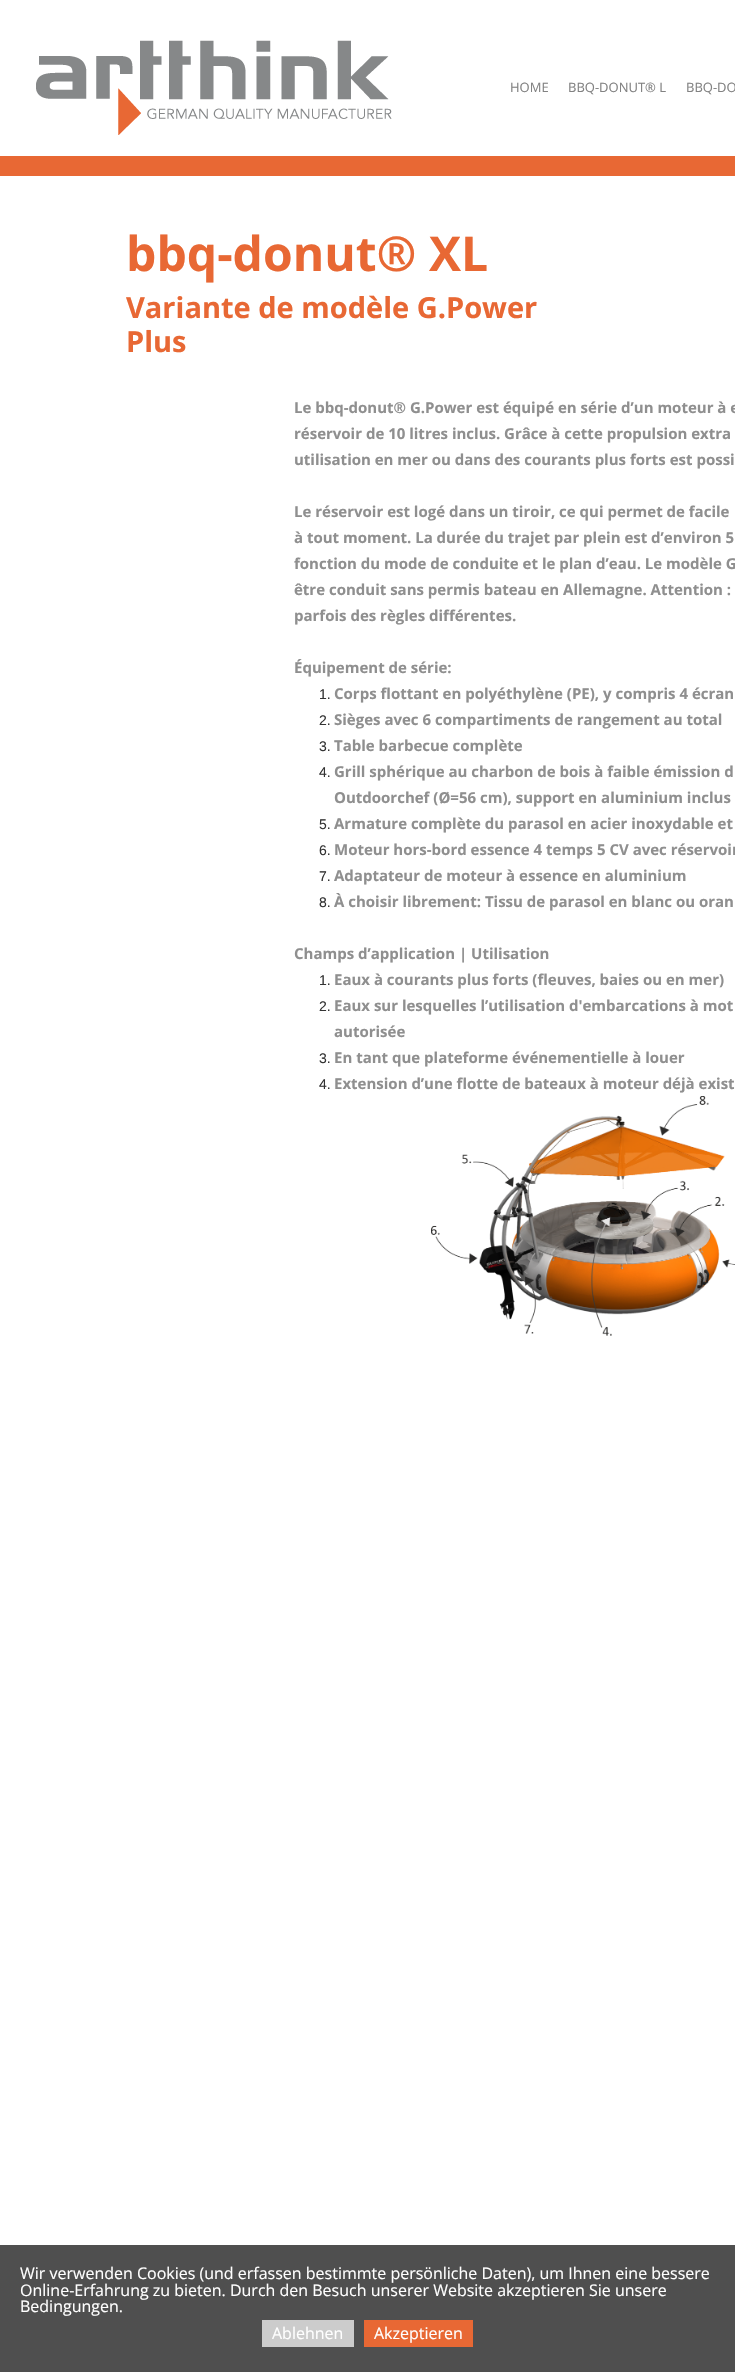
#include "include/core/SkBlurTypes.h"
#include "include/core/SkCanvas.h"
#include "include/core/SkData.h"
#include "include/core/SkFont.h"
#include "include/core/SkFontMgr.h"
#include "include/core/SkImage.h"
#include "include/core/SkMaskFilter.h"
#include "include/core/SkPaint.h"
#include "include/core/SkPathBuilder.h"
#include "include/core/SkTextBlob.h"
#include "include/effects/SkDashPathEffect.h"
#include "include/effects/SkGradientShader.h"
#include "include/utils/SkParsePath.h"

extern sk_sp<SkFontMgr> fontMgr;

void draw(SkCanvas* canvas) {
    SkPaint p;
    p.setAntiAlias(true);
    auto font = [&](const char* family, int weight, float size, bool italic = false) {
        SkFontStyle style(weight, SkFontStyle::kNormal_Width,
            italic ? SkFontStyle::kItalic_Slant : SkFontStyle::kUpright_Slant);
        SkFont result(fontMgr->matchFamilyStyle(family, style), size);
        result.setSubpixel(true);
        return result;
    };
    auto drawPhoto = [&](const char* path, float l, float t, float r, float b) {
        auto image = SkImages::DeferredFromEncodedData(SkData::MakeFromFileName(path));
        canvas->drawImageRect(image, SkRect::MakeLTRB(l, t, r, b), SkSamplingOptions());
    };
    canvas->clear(0xFFFFFFFF);
    drawPhoto("media/1.png", 36, 40, 392, 135);
    auto font1 = font("Open Sans", 400, 13);
    p.setColor(0xFF828282);
    {
        const struct { const char* s; float x, y; } items[] = {
            {"HOME", 510, 92},
            {"BBQ-DONUT® L", 568, 92},
            {"BBQ-DO", 686, 92},
        };
        for (auto [s, x, y] : items) {
            canvas->drawString(s, x, y, font1, p);
        }
    }
    p.setColor(0xFFE86834);
    canvas->drawRect(SkRect::MakeLTRB(0, 156, 735, 176), p);
    auto font2 = font("Open Sans", 700, 48);
    canvas->drawString("bbq-donut® XL", 126, 271, font2, p);
    auto font3 = font("Open Sans", 700, 29);
    canvas->drawString("Variante de modèle G.Power", 126, 318, font3, p);
    canvas->drawString("Plus", 126, 352, font3, p);
    auto font4 = font("Open Sans", 700, 15);
    p.setColor(0xFF8F8F8F);
    {
        const struct { const char* s; float x, y; } items[] = {
            {"Le bbq-donut® G.Power est équipé en série d’un moteur à e", 294, 413},
            {"réservoir de 10 litres inclus. Grâce à cette propulsion extra", 294, 439},
            {"utilisation en mer ou dans des courants plus forts est possi", 294, 465},
            {"Le réservoir est logé dans un tiroir, ce qui permet de facile", 294, 517},
            {"à tout moment. La durée du trajet par plein est d’environ 5", 294, 543},
            {"fonction du mode de conduite et le plan d’eau. Le modèle G", 294, 569},
            {"être conduit sans permis bateau en Allemagne. Attention :", 294, 595},
            {"parfois des règles différentes.", 294, 621},
            {"Équipement de série:", 294, 673},
        };
        for (auto [s, x, y] : items) {
            canvas->drawString(s, x, y, font4, p);
        }
    }
    auto font5 = font("Liberation Sans", 400, 14);
    p.setColor(0xFF333333);
    canvas->drawString("1.", 319, 699, font5, p);
    p.setColor(0xFF8F8F8F);
    canvas->drawString("Corps flottant en polyéthylène (PE), y compris 4 écran", 334, 699, font4, p);
    p.setColor(0xFF333333);
    canvas->drawString("2.", 319, 725, font5, p);
    p.setColor(0xFF8F8F8F);
    canvas->drawString("Sièges avec 6 compartiments de rangement au total", 334, 725, font4, p);
    p.setColor(0xFF333333);
    canvas->drawString("3.", 319, 751, font5, p);
    p.setColor(0xFF8F8F8F);
    canvas->drawString("Table barbecue complète", 334, 751, font4, p);
    p.setColor(0xFF333333);
    canvas->drawString("4.", 319, 777, font5, p);
    p.setColor(0xFF8F8F8F);
    canvas->drawString("Grill sphérique au charbon de bois à faible émission d", 334, 777, font4, p);
    canvas->drawString("Outdoorchef (Ø=56 cm), support en aluminium inclus", 334, 803, font4, p);
    p.setColor(0xFF333333);
    canvas->drawString("5.", 319, 829, font5, p);
    p.setColor(0xFF8F8F8F);
    canvas->drawString("Armature complète du parasol en acier inoxydable et", 334, 829, font4, p);
    p.setColor(0xFF333333);
    canvas->drawString("6.", 319, 855, font5, p);
    p.setColor(0xFF8F8F8F);
    canvas->drawString("Moteur hors-bord essence 4 temps 5 CV avec réservoir", 334, 855, font4, p);
    p.setColor(0xFF333333);
    canvas->drawString("7.", 319, 881, font5, p);
    p.setColor(0xFF8F8F8F);
    canvas->drawString("Adaptateur de moteur à essence en aluminium", 334, 881, font4, p);
    p.setColor(0xFF333333);
    canvas->drawString("8.", 319, 907, font5, p);
    p.setColor(0xFF8F8F8F);
    canvas->drawString("À choisir librement: Tissu de parasol en blanc ou oran", 334, 907, font4, p);
    canvas->drawString("Champs d’application | Utilisation", 294, 959, font4, p);
    p.setColor(0xFF333333);
    canvas->drawString("1.", 319, 985, font5, p);
    p.setColor(0xFF8F8F8F);
    canvas->drawString("Eaux à courants plus forts (fleuves, baies ou en mer)", 334, 985, font4, p);
    p.setColor(0xFF333333);
    canvas->drawString("2.", 319, 1011, font5, p);
    p.setColor(0xFF8F8F8F);
    canvas->drawString("Eaux sur lesquelles l’utilisation d'embarcations à mot", 334, 1011, font4, p);
    canvas->drawString("autorisée", 334, 1037, font4, p);
    p.setColor(0xFF333333);
    canvas->drawString("3.", 319, 1063, font5, p);
    p.setColor(0xFF8F8F8F);
    canvas->drawString("En tant que plateforme événementielle à louer", 334, 1063, font4, p);
    p.setColor(0xFF333333);
    canvas->drawString("4.", 319, 1089, font5, p);
    p.setColor(0xFF8F8F8F);
    canvas->drawString("Extension d’une flotte de bateaux à moteur déjà exist", 334, 1089, font4, p);
    drawPhoto("media/2.png", 431, 1096, 735, 1336);
    p.setColor(0xFF4F4F4F);
    canvas->drawRect(SkRect::MakeLTRB(0, 2245, 735, 2372), p);
    auto font6 = font("Open Sans", 400, 16);
    p.setColor(0xFFFFFFFF);
    {
        const struct { const char* s; float x, y; } items[] = {
            {"Wir verwenden Cookies (und erfassen bestimmte persönliche Daten), um Ihnen eine bessere", 20, 2279},
            {"Online-Erfahrung zu bieten. Durch den Besuch unserer Website akzeptieren Sie unsere", 20, 2296},
            {"Bedingungen.", 20, 2312},
        };
        for (auto [s, x, y] : items) {
            canvas->drawString(s, x, y, font6, p);
        }
    }
    p.setColor(0xFFCCCCCC);
    canvas->drawRect(SkRect::MakeLTRB(262, 2320, 354, 2347), p);
    p.setColor(0xFFFFFFFF);
    canvas->drawString("Ablehnen", 272, 2339, font6, p);
    p.setColor(0xFFE86834);
    canvas->drawRect(SkRect::MakeLTRB(364, 2320, 473, 2347), p);
    p.setColor(0xFFFFFFFF);
    canvas->drawString("Akzeptieren", 374, 2339, font6, p);
}
